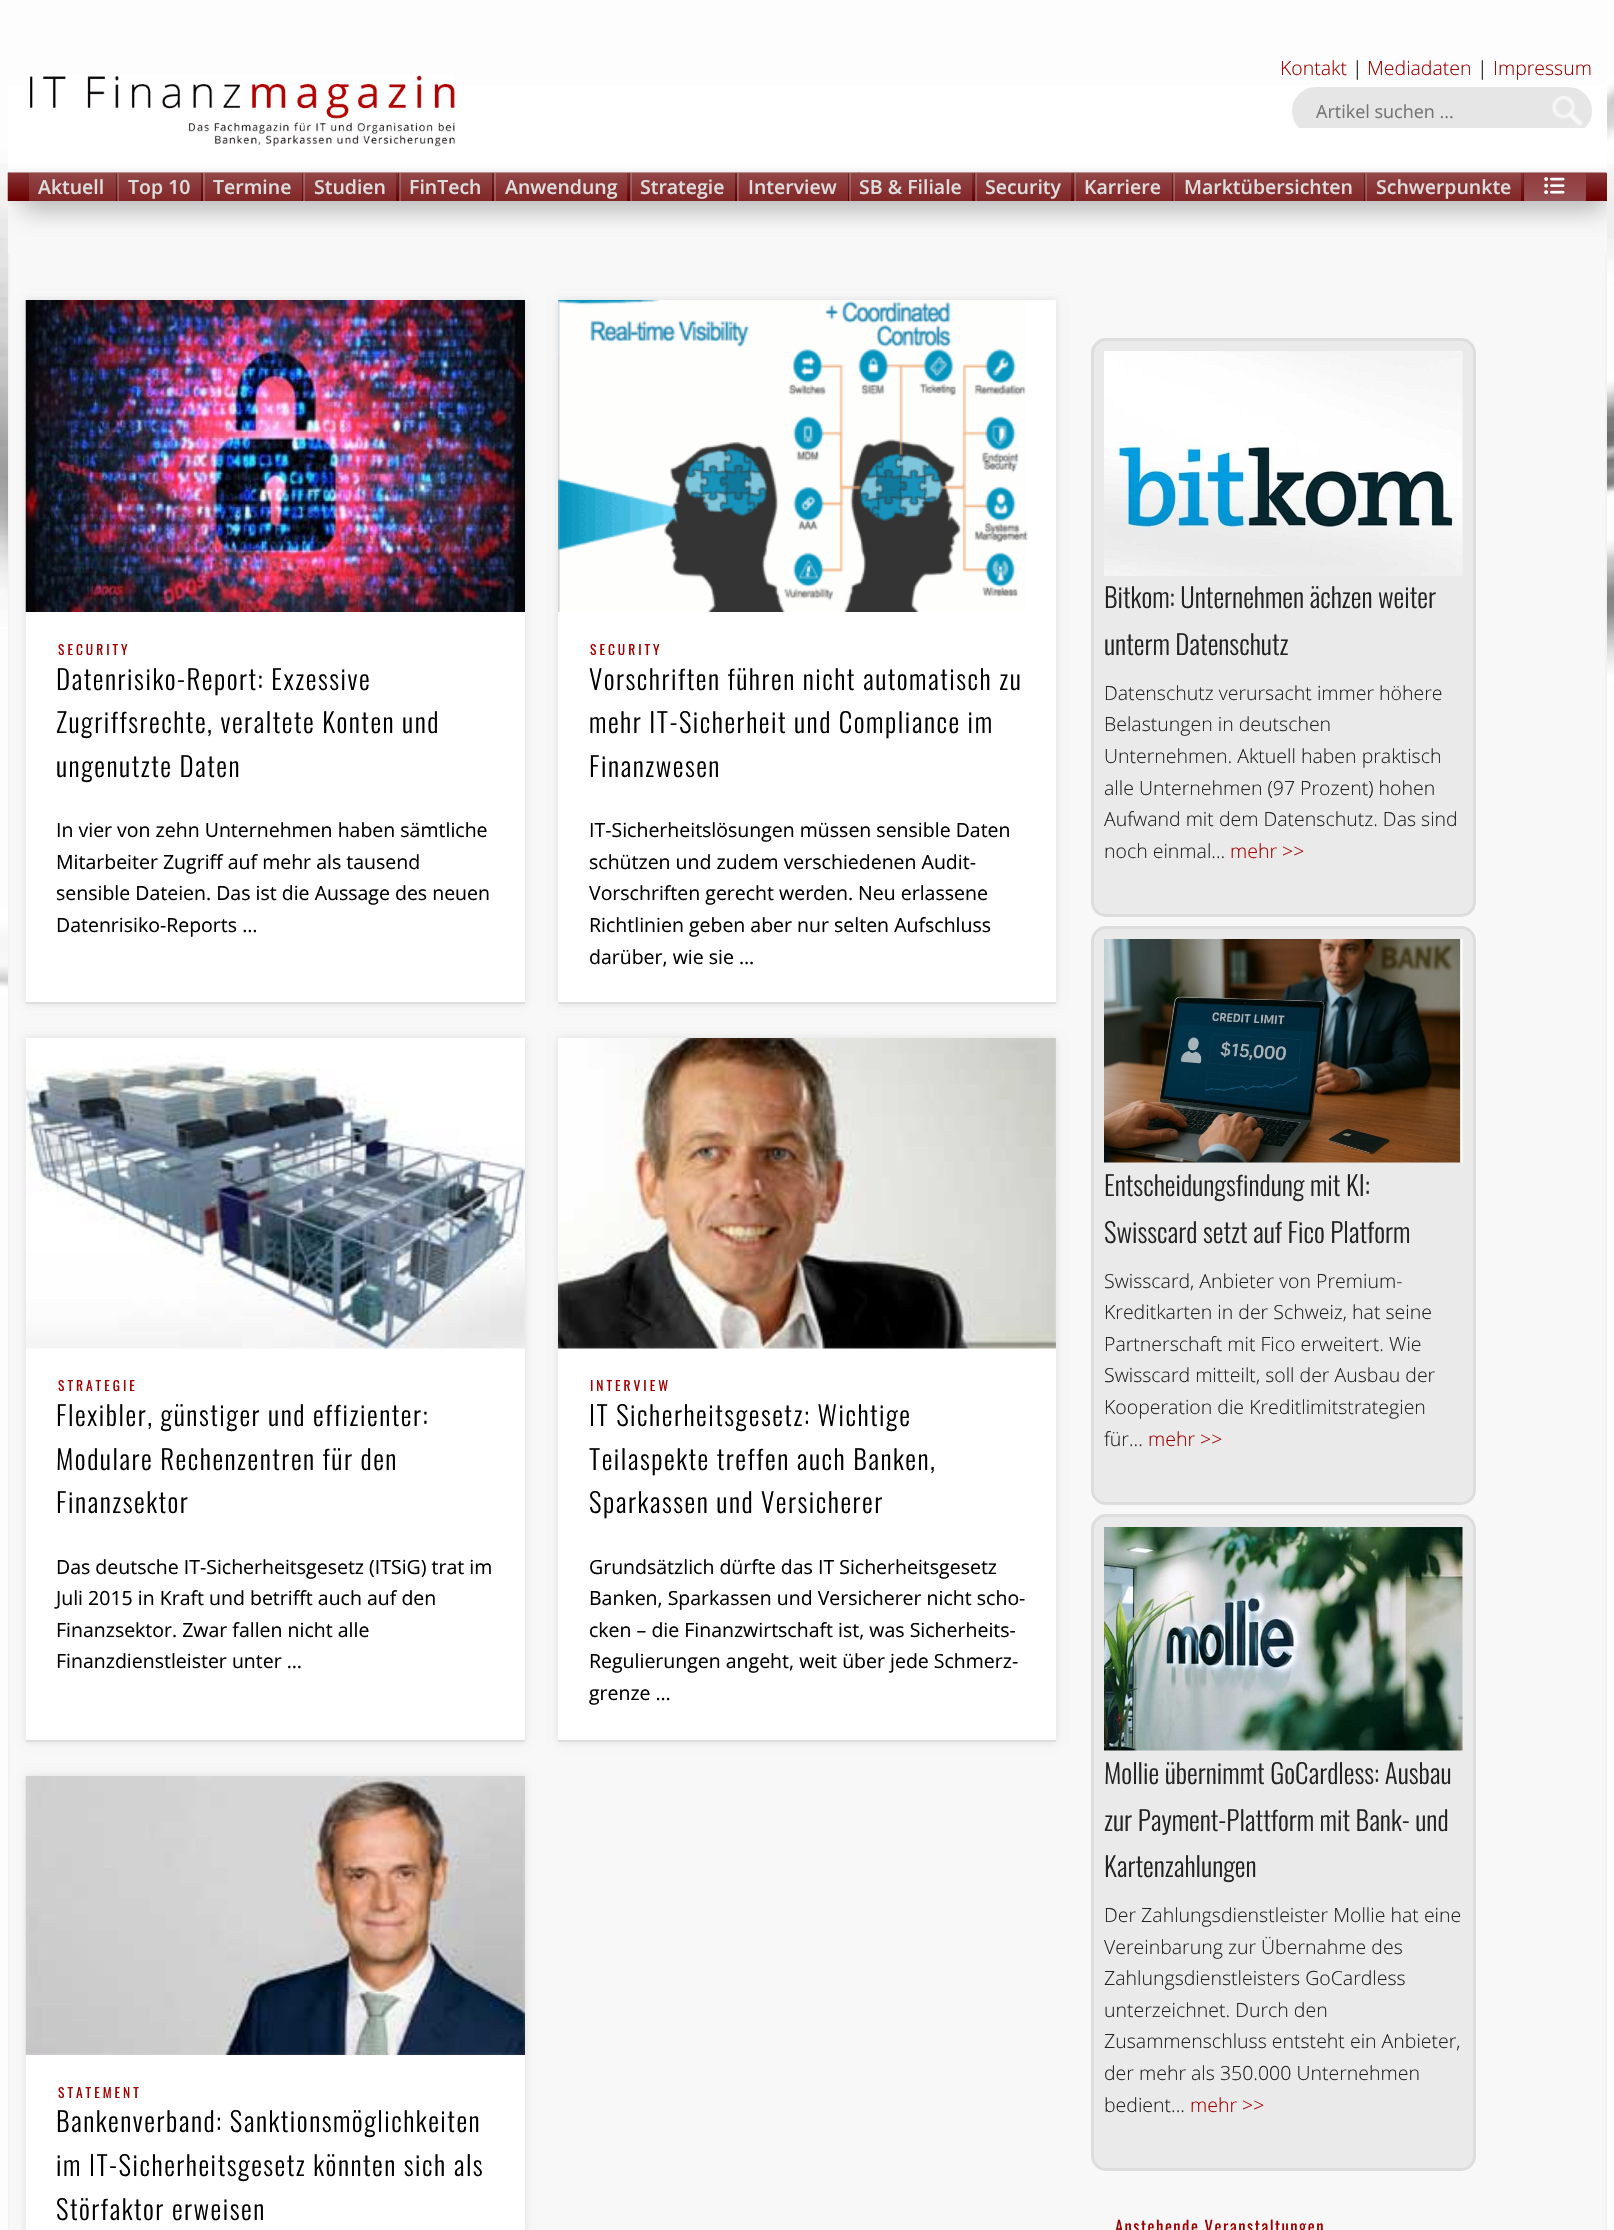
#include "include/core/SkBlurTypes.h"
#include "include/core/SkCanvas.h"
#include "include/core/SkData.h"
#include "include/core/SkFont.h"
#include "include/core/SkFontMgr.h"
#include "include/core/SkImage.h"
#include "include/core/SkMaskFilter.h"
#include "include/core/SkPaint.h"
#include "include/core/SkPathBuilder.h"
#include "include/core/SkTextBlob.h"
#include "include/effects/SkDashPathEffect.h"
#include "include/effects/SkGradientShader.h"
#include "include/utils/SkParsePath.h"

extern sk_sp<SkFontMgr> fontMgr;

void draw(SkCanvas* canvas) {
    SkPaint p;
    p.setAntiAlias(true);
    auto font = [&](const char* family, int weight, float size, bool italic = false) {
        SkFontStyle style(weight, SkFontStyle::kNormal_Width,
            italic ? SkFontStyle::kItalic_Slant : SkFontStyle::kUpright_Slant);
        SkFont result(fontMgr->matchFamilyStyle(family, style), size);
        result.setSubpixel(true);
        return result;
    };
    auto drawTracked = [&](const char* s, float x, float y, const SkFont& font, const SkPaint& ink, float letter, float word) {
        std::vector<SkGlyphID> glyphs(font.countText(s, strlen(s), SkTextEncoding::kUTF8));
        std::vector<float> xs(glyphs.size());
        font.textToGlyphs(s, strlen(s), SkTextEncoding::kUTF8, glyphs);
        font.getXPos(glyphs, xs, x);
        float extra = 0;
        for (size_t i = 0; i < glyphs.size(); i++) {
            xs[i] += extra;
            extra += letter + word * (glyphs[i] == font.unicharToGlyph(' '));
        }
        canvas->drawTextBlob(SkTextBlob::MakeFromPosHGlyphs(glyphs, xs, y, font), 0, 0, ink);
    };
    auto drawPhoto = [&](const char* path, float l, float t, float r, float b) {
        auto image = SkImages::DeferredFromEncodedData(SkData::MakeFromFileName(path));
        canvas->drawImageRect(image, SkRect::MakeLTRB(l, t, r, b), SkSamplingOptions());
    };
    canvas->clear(0xFFFFFFFF);
    drawPhoto("media/1.png", 0, 0, 1614, 2230);
    p.setColor(0xFFF8F8F8);
    canvas->drawRect(SkRect::MakeLTRB(8, 201, 1607, 2230), p);
    p.setColor(0xFFFFFFFF);
    canvas->drawRect(SkRect::MakeLTRB(8, 85, 1607, 173), p);
    drawPhoto("media/2.png", 30, 75, 455, 147);
    auto font1 = font("Open Sans", 300, 19.5f);
    p.setColor(0xFFA20000);
    canvas->drawString("Kontakt", 1280, 75, font1, p);
    p.setColor(0xFF000000);
    canvas->drawString("|", 1352, 75, font1, p);
    p.setColor(0xFFA20000);
    canvas->drawString("Mediadaten", 1367, 75, font1, p);
    p.setColor(0xFF000000);
    canvas->drawString("|", 1477, 75, font1, p);
    p.setColor(0xFFA20000);
    canvas->drawString("Impressum", 1493, 75, font1, p);
    canvas->save();
    canvas->clipRect(SkRect::MakeLTRB(1112, 38, 1607, 128));
    p.setColor(0xFFE6E6E6);
    canvas->drawRoundRect(SkRect::MakeLTRB(1292, 87, 1592, 135), 24, 24, p);
    canvas->restore();
    drawPhoto("media/3.png", 1552, 96, 1583, 126);
    auto font2 = font("Open Sans", 400, 18);
    p.setColor(0xFF757575);
    canvas->drawString("Artikel suchen ...", 1316, 118, font2, p);
    canvas->save();
    canvas->clipRect(SkRect::MakeLTRB(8, 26, 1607, 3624));
    p.setColor(0x1A000000);
    p.setMaskFilter(SkMaskFilter::MakeBlur(kNormal_SkBlurStyle, 5));
    canvas->drawRect(SkRect::MakeLTRB(8, 173, 1607, 201), p);
    p.setMaskFilter(nullptr);
    canvas->restore();
    drawPhoto("media/4.png", 7, 172, 1607, 201);
    canvas->save();
    canvas->clipRect(SkRect::MakeLTRB(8, 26, 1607, 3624));
    p.setColor(0x80000000);
    p.setMaskFilter(SkMaskFilter::MakeBlur(kNormal_SkBlurStyle, 12));
    canvas->drawRect(SkRect::MakeLTRB(23, 197, 1604, 207), p);
    p.setMaskFilter(nullptr);
    canvas->restore();
    {
        const SkColor colors[] = {0xFF873335, 0xFF6C0000};
        const float stops[] = {0, 1};
        const SkPoint ends[] = {{807, 172}, {807, 201}};
        p.setShader(SkGradientShader::MakeLinear(ends, colors, stops, 2, SkTileMode::kClamp));
        p.setAlpha(255);
    }
    canvas->drawRect(SkRect::MakeLTRB(8, 173, 1607, 201), p);
    {
        const SkColor colors[] = {0x1AFFFFFF, 0x26FFFFFF};
        const float stops[] = {0, 1};
        const SkPoint ends[] = {{72, 173}, {72, 201}};
        p.setShader(SkGradientShader::MakeLinear(ends, colors, stops, 2, SkTileMode::kClamp));
        p.setAlpha(255);
    }
    canvas->drawRect(SkRect::MakeLTRB(29, 173, 116, 201), p);
    auto font3 = font("Open Sans", 600, 19.5f);
    p.setShader(nullptr);
    p.setColor(0xFFDDDDDD);
    canvas->drawString("Aktuell", 38, 194, font3, p);
    p.setColor(0x33FFFFFF);
    canvas->drawRect(SkRect::MakeLTRB(117, 173, 119, 201), p);
    p.setColor(0x26000000);
    canvas->drawRect(SkRect::MakeLTRB(116, 173, 118, 201), p);
    {
        const SkColor colors[] = {0x1AFFFFFF, 0x26FFFFFF};
        const float stops[] = {0, 1};
        const SkPoint ends[] = {{159, 173}, {159, 201}};
        p.setShader(SkGradientShader::MakeLinear(ends, colors, stops, 2, SkTileMode::kClamp));
        p.setAlpha(255);
    }
    canvas->drawRect(SkRect::MakeLTRB(117, 173, 201, 201), p);
    p.setShader(nullptr);
    p.setColor(0xFFDDDDDD);
    canvas->drawString("Top 10", 128, 194, font3, p);
    p.setColor(0x33FFFFFF);
    canvas->drawRect(SkRect::MakeLTRB(203, 173, 205, 201), p);
    p.setColor(0x26000000);
    canvas->drawRect(SkRect::MakeLTRB(201, 173, 203, 201), p);
    {
        const SkColor colors[] = {0x1AFFFFFF, 0x26FFFFFF};
        const float stops[] = {0, 1};
        const SkPoint ends[] = {{252, 173}, {252, 201}};
        p.setShader(SkGradientShader::MakeLinear(ends, colors, stops, 2, SkTileMode::kClamp));
        p.setAlpha(255);
    }
    canvas->drawRect(SkRect::MakeLTRB(203, 173, 302, 201), p);
    p.setShader(nullptr);
    p.setColor(0xFFDDDDDD);
    canvas->drawString("Termine", 213, 194, font3, p);
    p.setColor(0x33FFFFFF);
    canvas->drawRect(SkRect::MakeLTRB(303, 173, 305, 201), p);
    p.setColor(0x26000000);
    canvas->drawRect(SkRect::MakeLTRB(302, 173, 304, 201), p);
    {
        const SkColor colors[] = {0x1AFFFFFF, 0x26FFFFFF};
        const float stops[] = {0, 1};
        const SkPoint ends[] = {{350, 173}, {350, 201}};
        p.setShader(SkGradientShader::MakeLinear(ends, colors, stops, 2, SkTileMode::kClamp));
        p.setAlpha(255);
    }
    canvas->drawRect(SkRect::MakeLTRB(303, 173, 396, 201), p);
    p.setShader(nullptr);
    p.setColor(0xFFDDDDDD);
    canvas->drawString("Studien", 314, 194, font3, p);
    p.setColor(0x33FFFFFF);
    canvas->drawRect(SkRect::MakeLTRB(399, 173, 401, 201), p);
    p.setColor(0x26000000);
    canvas->drawRect(SkRect::MakeLTRB(398, 173, 400, 201), p);
    {
        const SkColor colors[] = {0x1AFFFFFF, 0x26FFFFFF};
        const float stops[] = {0, 1};
        const SkPoint ends[] = {{446, 173}, {446, 201}};
        p.setShader(SkGradientShader::MakeLinear(ends, colors, stops, 2, SkTileMode::kClamp));
        p.setAlpha(255);
    }
    canvas->drawRect(SkRect::MakeLTRB(399, 173, 492, 201), p);
    p.setShader(nullptr);
    p.setColor(0xFFDDDDDD);
    canvas->drawString("FinTech", 409, 194, font3, p);
    p.setColor(0x33FFFFFF);
    canvas->drawRect(SkRect::MakeLTRB(494, 173, 496, 201), p);
    p.setColor(0x26000000);
    canvas->drawRect(SkRect::MakeLTRB(492, 173, 494, 201), p);
    {
        const SkColor colors[] = {0x1AFFFFFF, 0x26FFFFFF};
        const float stops[] = {0, 1};
        const SkPoint ends[] = {{560, 173}, {560, 201}};
        p.setShader(SkGradientShader::MakeLinear(ends, colors, stops, 2, SkTileMode::kClamp));
        p.setAlpha(255);
    }
    canvas->drawRect(SkRect::MakeLTRB(494, 173, 627, 201), p);
    p.setShader(nullptr);
    p.setColor(0xFFDDDDDD);
    canvas->drawString("Anwendung", 505, 194, font3, p);
    p.setColor(0x33FFFFFF);
    canvas->drawRect(SkRect::MakeLTRB(630, 173, 632, 201), p);
    p.setColor(0x26000000);
    canvas->drawRect(SkRect::MakeLTRB(629, 173, 631, 201), p);
    {
        const SkColor colors[] = {0x1AFFFFFF, 0x26FFFFFF};
        const float stops[] = {0, 1};
        const SkPoint ends[] = {{683, 173}, {683, 201}};
        p.setShader(SkGradientShader::MakeLinear(ends, colors, stops, 2, SkTileMode::kClamp));
        p.setAlpha(255);
    }
    canvas->drawRect(SkRect::MakeLTRB(630, 173, 735, 201), p);
    p.setShader(nullptr);
    p.setColor(0xFFDDDDDD);
    canvas->drawString("Strategie", 640, 194, font3, p);
    p.setColor(0x33FFFFFF);
    canvas->drawRect(SkRect::MakeLTRB(737, 173, 739, 201), p);
    p.setColor(0x26000000);
    canvas->drawRect(SkRect::MakeLTRB(735, 173, 737, 201), p);
    {
        const SkColor colors[] = {0x1AFFFFFF, 0x26FFFFFF};
        const float stops[] = {0, 1};
        const SkPoint ends[] = {{792, 173}, {792, 201}};
        p.setShader(SkGradientShader::MakeLinear(ends, colors, stops, 2, SkTileMode::kClamp));
        p.setAlpha(255);
    }
    canvas->drawRect(SkRect::MakeLTRB(737, 173, 848, 201), p);
    p.setShader(nullptr);
    p.setColor(0xFFDDDDDD);
    canvas->drawString("Interview", 748, 194, font3, p);
    p.setColor(0x33FFFFFF);
    canvas->drawRect(SkRect::MakeLTRB(849, 173, 851, 201), p);
    p.setColor(0x26000000);
    canvas->drawRect(SkRect::MakeLTRB(848, 173, 850, 201), p);
    {
        const SkColor colors[] = {0x1AFFFFFF, 0x26FFFFFF};
        const float stops[] = {0, 1};
        const SkPoint ends[] = {{911, 173}, {911, 201}};
        p.setShader(SkGradientShader::MakeLinear(ends, colors, stops, 2, SkTileMode::kClamp));
        p.setAlpha(255);
    }
    canvas->drawRect(SkRect::MakeLTRB(849, 173, 972, 201), p);
    p.setShader(nullptr);
    p.setColor(0xFFDDDDDD);
    canvas->drawString("SB & Filiale", 859, 194, font3, p);
    p.setColor(0x33FFFFFF);
    canvas->drawRect(SkRect::MakeLTRB(975, 173, 977, 201), p);
    p.setColor(0x26000000);
    canvas->drawRect(SkRect::MakeLTRB(974, 173, 976, 201), p);
    {
        const SkColor colors[] = {0x1AFFFFFF, 0x26FFFFFF};
        const float stops[] = {0, 1};
        const SkPoint ends[] = {{1023, 173}, {1023, 201}};
        p.setShader(SkGradientShader::MakeLinear(ends, colors, stops, 2, SkTileMode::kClamp));
        p.setAlpha(255);
    }
    canvas->drawRect(SkRect::MakeLTRB(975, 173, 1071, 201), p);
    p.setShader(nullptr);
    p.setColor(0xFFDDDDDD);
    canvas->drawString("Security", 985, 194, font3, p);
    p.setColor(0x33FFFFFF);
    canvas->drawRect(SkRect::MakeLTRB(1074, 173, 1076, 201), p);
    p.setColor(0x26000000);
    canvas->drawRect(SkRect::MakeLTRB(1073, 173, 1075, 201), p);
    {
        const SkColor colors[] = {0x1AFFFFFF, 0x26FFFFFF};
        const float stops[] = {0, 1};
        const SkPoint ends[] = {{1123, 173}, {1123, 201}};
        p.setShader(SkGradientShader::MakeLinear(ends, colors, stops, 2, SkTileMode::kClamp));
        p.setAlpha(255);
    }
    canvas->drawRect(SkRect::MakeLTRB(1074, 173, 1172, 201), p);
    p.setShader(nullptr);
    p.setColor(0xFFDDDDDD);
    canvas->drawString("Karriere", 1084, 194, font3, p);
    p.setColor(0x33FFFFFF);
    canvas->drawRect(SkRect::MakeLTRB(1173, 173, 1175, 201), p);
    p.setColor(0x26000000);
    canvas->drawRect(SkRect::MakeLTRB(1172, 173, 1174, 201), p);
    {
        const SkColor colors[] = {0x1AFFFFFF, 0x26FFFFFF};
        const float stops[] = {0, 1};
        const SkPoint ends[] = {{1268, 173}, {1268, 201}};
        p.setShader(SkGradientShader::MakeLinear(ends, colors, stops, 2, SkTileMode::kClamp));
        p.setAlpha(255);
    }
    canvas->drawRect(SkRect::MakeLTRB(1173, 173, 1364, 201), p);
    p.setShader(nullptr);
    p.setColor(0xFFDDDDDD);
    canvas->drawString("Marktübersichten", 1184, 194, font3, p);
    p.setColor(0x33FFFFFF);
    canvas->drawRect(SkRect::MakeLTRB(1365, 173, 1367, 201), p);
    p.setColor(0x26000000);
    canvas->drawRect(SkRect::MakeLTRB(1364, 173, 1366, 201), p);
    {
        const SkColor colors[] = {0x1AFFFFFF, 0x26FFFFFF};
        const float stops[] = {0, 1};
        const SkPoint ends[] = {{1443, 173}, {1443, 201}};
        p.setShader(SkGradientShader::MakeLinear(ends, colors, stops, 2, SkTileMode::kClamp));
        p.setAlpha(255);
    }
    canvas->drawRect(SkRect::MakeLTRB(1365, 173, 1521, 201), p);
    p.setShader(nullptr);
    p.setColor(0xFFDDDDDD);
    canvas->drawString("Schwerpunkte", 1376, 194, font3, p);
    p.setColor(0x26000000);
    canvas->drawRect(SkRect::MakeLTRB(1523, 173, 1524, 201), p);
    {
        const SkColor colors[] = {0xFF933C3E, 0xFF965054};
        const float stops[] = {0, 1};
        const SkPoint ends[] = {{1555, 173}, {1555, 201}};
        p.setShader(SkGradientShader::MakeLinear(ends, colors, stops, 2, SkTileMode::kClamp));
        p.setAlpha(255);
    }
    canvas->drawRect(SkRect::MakeLTRB(1524, 173, 1586, 201), p);
    drawPhoto("media/5.png", 1544, 177, 1565, 195);
    p.setShader(nullptr);
    p.setColor(0xFFF3F3F3);
    canvas->drawRect(SkRect::MakeLTRB(1605, 254, 1607, 2230), p);
    canvas->drawRect(SkRect::MakeLTRB(8, 254, 10, 2230), p);
    p.setColor(0x1A000000);
    p.setMaskFilter(SkMaskFilter::MakeBlur(kNormal_SkBlurStyle, 4));
    canvas->drawRect(SkRect::MakeLTRB(26, 300, 525, 1004), p);
    p.setMaskFilter(nullptr);
    p.setColor(0xFFFFFFFF);
    canvas->drawRect(SkRect::MakeLTRB(26, 612, 525, 1002), p);
    p.setColor(0xFFDEDEDE);
    canvas->drawRect(SkRect::MakeLTRB(26, 1002, 525, 1004), p);
    drawPhoto("media/6.png", 25, 300, 525, 612);
    auto font4 = font("Oswald", 400, 13.5f);
    p.setColor(0xFFA20000);
    drawTracked("SECURITY", 58, 655, font4, p, 3, 0);
    auto font5 = font("Oswald", 300, 27);
    p.setColor(0xFF000000);
    {
        const struct { const char* s; float x, y; } items[] = {
            {"Datenrisiko-Report: Exzessive", 56, 690},
            {"Zugriffsrechte, veraltete Konten und", 56, 733},
            {"ungenutzte Daten", 56, 777},
        };
        for (auto [s, x, y] : items) {
            drawTracked(s, x, y, font5, p, 1.5f, 0);
        }
    }
    auto font6 = font("Open Sans", 400, 19.5f);
    {
        const struct { const char* s; float x, y; } items[] = {
            {"In vier von zehn Unternehmen haben sämtliche", 56, 837},
            {"Mitarbeiter Zugriff auf mehr als tausend", 56, 869},
            {"sensible Dateien. Das ist die Aussage des neuen", 56, 900},
            {"Datenrisiko-Reports …", 56, 932},
        };
        for (auto [s, x, y] : items) {
            canvas->drawString(s, x, y, font6, p);
        }
    }
    p.setColor(0x1A000000);
    p.setMaskFilter(SkMaskFilter::MakeBlur(kNormal_SkBlurStyle, 4));
    canvas->drawRect(SkRect::MakeLTRB(558, 300, 1056, 1004), p);
    p.setMaskFilter(nullptr);
    p.setColor(0xFFFFFFFF);
    canvas->drawRect(SkRect::MakeLTRB(558, 300, 1056, 1002), p);
    p.setColor(0xFFDEDEDE);
    canvas->drawRect(SkRect::MakeLTRB(558, 1002, 1056, 1004), p);
    drawPhoto("media/7.png", 558, 300, 1028, 612);
    p.setColor(0xFFA20000);
    drawTracked("SECURITY", 590, 655, font4, p, 3, 0);
    p.setColor(0xFF000000);
    {
        const struct { const char* s; float x, y; } items[] = {
            {"Vorschriften führen nicht automatisch zu", 589, 690},
            {"mehr IT-Sicherheit und Compliance im", 589, 733},
            {"Finanzwesen", 589, 777},
        };
        for (auto [s, x, y] : items) {
            drawTracked(s, x, y, font5, p, 1.5f, 0);
        }
    }
    {
        const struct { const char* s; float x, y; } items[] = {
            {"IT-Sicherheitslösungen müssen sensible Daten", 589, 837},
            {"schützen und zudem verschiedenen Audit-", 589, 869},
            {"Vorschriften gerecht werden. Neu erlassene", 589, 900},
            {"Richtlinien geben aber nur selten Aufschluss", 589, 932},
            {"darüber, wie sie …", 589, 964},
        };
        for (auto [s, x, y] : items) {
            canvas->drawString(s, x, y, font6, p);
        }
    }
    p.setColor(0x1A000000);
    p.setMaskFilter(SkMaskFilter::MakeBlur(kNormal_SkBlurStyle, 4));
    canvas->drawRect(SkRect::MakeLTRB(26, 1038, 525, 1742), p);
    p.setMaskFilter(nullptr);
    p.setColor(0xFFFFFFFF);
    canvas->drawRect(SkRect::MakeLTRB(26, 1038, 525, 1740), p);
    p.setColor(0xFFDEDEDE);
    canvas->drawRect(SkRect::MakeLTRB(26, 1740, 525, 1742), p);
    drawPhoto("media/8.png", 26, 1055, 525, 1349);
    p.setColor(0xFFA20000);
    drawTracked("STRATEGIE", 58, 1391, font4, p, 3, 0);
    p.setColor(0xFF000000);
    {
        const struct { const char* s; float x, y; } items[] = {
            {"Flexibler, günstiger und effizienter:", 56, 1426},
            {"Modulare Rechenzentren für den", 56, 1470},
            {"Finanzsektor", 56, 1513},
        };
        for (auto [s, x, y] : items) {
            drawTracked(s, x, y, font5, p, 1.5f, 0);
        }
    }
    {
        const struct { const char* s; float x, y; } items[] = {
            {"Das deutsche IT-Sicherheitsgesetz (ITSiG) trat im", 56, 1574},
            {"Juli 2015 in Kraft und betrifft auch auf den", 56, 1605},
            {"Finanzsektor. Zwar fallen nicht alle", 56, 1637},
            {"Finanzdienstleister unter …", 56, 1668},
        };
        for (auto [s, x, y] : items) {
            canvas->drawString(s, x, y, font6, p);
        }
    }
    p.setColor(0x1A000000);
    p.setMaskFilter(SkMaskFilter::MakeBlur(kNormal_SkBlurStyle, 4));
    canvas->drawRect(SkRect::MakeLTRB(558, 1038, 1056, 1742), p);
    p.setMaskFilter(nullptr);
    p.setColor(0xFFFFFFFF);
    canvas->drawRect(SkRect::MakeLTRB(558, 1348, 1056, 1740), p);
    p.setColor(0xFFDEDEDE);
    canvas->drawRect(SkRect::MakeLTRB(558, 1740, 1056, 1742), p);
    drawPhoto("media/9.png", 558, 1038, 1056, 1349);
    p.setColor(0xFFA20000);
    drawTracked("INTERVIEW", 590, 1391, font4, p, 3, 0);
    p.setColor(0xFF000000);
    {
        const struct { const char* s; float x, y; } items[] = {
            {"IT Sicherheitsgesetz: Wichtige", 589, 1426},
            {"Teilaspekte treffen auch Banken,", 589, 1470},
            {"Sparkassen und Versicherer", 589, 1513},
        };
        for (auto [s, x, y] : items) {
            drawTracked(s, x, y, font5, p, 1.5f, 0);
        }
    }
    {
        const struct { const char* s; float x, y; } items[] = {
            {"Grundsätzlich dürfte das IT Sicherheitsgesetz", 589, 1574},
            {"Banken, Sparkassen und Versicherer nicht scho-", 589, 1605},
            {"cken – die Finanzwirtschaft ist, was Sicherheits-", 589, 1637},
            {"Regulierungen angeht, weit über jede Schmerz-", 589, 1668},
            {"grenze …", 589, 1700},
        };
        for (auto [s, x, y] : items) {
            canvas->drawString(s, x, y, font6, p);
        }
    }
    p.setColor(0x1A000000);
    p.setMaskFilter(SkMaskFilter::MakeBlur(kNormal_SkBlurStyle, 4));
    canvas->drawRect(SkRect::MakeLTRB(26, 1776, 525, 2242), p);
    p.setMaskFilter(nullptr);
    p.setColor(0xFFFFFFFF);
    canvas->drawRect(SkRect::MakeLTRB(26, 2055, 525, 2230), p);
    drawPhoto("media/10.png", 25, 1776, 525, 2055);
    p.setColor(0xFFA20000);
    drawTracked("STATEMENT", 58, 2098, font4, p, 3, 0);
    p.setColor(0xFF000000);
    {
        const struct { const char* s; float x, y; } items[] = {
            {"Bankenverband: Sanktionsmöglichkeiten", 56, 2132},
            {"im IT-Sicherheitsgesetz könnten sich als", 56, 2176},
            {"Störfaktor erweisen", 56, 2220},
        };
        for (auto [s, x, y] : items) {
            drawTracked(s, x, y, font5, p, 1.5f, 0);
        }
    }
    p.setColor(0xFFEAEAEA);
    canvas->drawRoundRect(SkRect::MakeLTRB(1092.5f, 339.5f, 1474.5f, 915.5f), 13.5f, 13.5f, p);
    p.setStyle(SkPaint::kStroke_Style);
    p.setStrokeWidth(3);
    p.setColor(0xFFDDDDDD);
    canvas->drawRoundRect(SkRect::MakeLTRB(1092.5f, 339.5f, 1474.5f, 915.5f), 13.5f, 13.5f, p);
    drawPhoto("media/11.png", 1104, 351, 1463, 576);
    p.setStyle(SkPaint::kFill_Style);
    p.setColor(0xFF222222);
    canvas->drawString("Bitkom: Unternehmen ächzen weiter", 1104, 608, font5, p);
    canvas->drawString("unterm Datenschutz", 1104, 655, font5, p);
    {
        const struct { const char* s; float x, y; } items[] = {
            {"Datenschutz verursacht immer höhere", 1104, 700},
            {"Belastungen in deutschen", 1104, 731},
            {"Unternehmen. Aktuell haben praktisch", 1104, 763},
            {"alle Unternehmen (97 Prozent) hohen", 1104, 795},
            {"Aufwand mit dem Datenschutz. Das sind", 1104, 826},
            {"noch einmal...", 1104, 858},
        };
        for (auto [s, x, y] : items) {
            canvas->drawString(s, x, y, font1, p);
        }
    }
    p.setColor(0xFFA20000);
    canvas->drawString("mehr >>", 1230, 858, font1, p);
    p.setColor(0xFFEAEAEA);
    canvas->drawRoundRect(SkRect::MakeLTRB(1092.5f, 927.5f, 1474.5f, 1503.5f), 13.5f, 13.5f, p);
    p.setStyle(SkPaint::kStroke_Style);
    p.setColor(0xFFDDDDDD);
    canvas->drawRoundRect(SkRect::MakeLTRB(1092.5f, 927.5f, 1474.5f, 1503.5f), 13.5f, 13.5f, p);
    drawPhoto("media/12.png", 1104, 939, 1463, 1163);
    p.setStyle(SkPaint::kFill_Style);
    p.setColor(0xFF222222);
    canvas->drawString("Entscheidungsfindung mit KI:", 1104, 1196, font5, p);
    canvas->drawString("Swisscard setzt auf Fico Platform", 1104, 1243, font5, p);
    {
        const struct { const char* s; float x, y; } items[] = {
            {"Swisscard, Anbieter von Premium-", 1104, 1288},
            {"Kreditkarten in der Schweiz, hat seine", 1104, 1319},
            {"Partnerschaft mit Fico erweitert. Wie", 1104, 1351},
            {"Swisscard mitteilt, soll der Ausbau der", 1104, 1382},
            {"Kooperation die Kreditlimitstrategien", 1104, 1414},
            {"für...", 1104, 1446},
        };
        for (auto [s, x, y] : items) {
            canvas->drawString(s, x, y, font1, p);
        }
    }
    p.setColor(0xFFA20000);
    canvas->drawString("mehr >>", 1148, 1446, font1, p);
    p.setColor(0xFFEAEAEA);
    canvas->drawRoundRect(SkRect::MakeLTRB(1092.5f, 1515.5f, 1474.5f, 2169.5f), 13.5f, 13.5f, p);
    p.setStyle(SkPaint::kStroke_Style);
    p.setColor(0xFFDDDDDD);
    canvas->drawRoundRect(SkRect::MakeLTRB(1092.5f, 1515.5f, 1474.5f, 2169.5f), 13.5f, 13.5f, p);
    drawPhoto("media/13.png", 1104, 1527, 1463, 1751);
    p.setStyle(SkPaint::kFill_Style);
    p.setColor(0xFF222222);
    {
        const struct { const char* s; float x, y; } items[] = {
            {"Mollie übernimmt GoCardless: Ausbau", 1104, 1784},
            {"zur Payment-Plattform mit Bank- und", 1104, 1831},
            {"Kartenzahlungen", 1104, 1877},
        };
        for (auto [s, x, y] : items) {
            canvas->drawString(s, x, y, font5, p);
        }
    }
    {
        const struct { const char* s; float x, y; } items[] = {
            {"Der Zahlungsdienstleister Mollie hat eine", 1104, 1922},
            {"Vereinbarung zur Übernahme des", 1104, 1954},
            {"Zahlungsdienstleisters GoCardless", 1104, 1985},
            {"unterzeichnet. Durch den", 1104, 2017},
            {"Zusammenschluss entsteht ein Anbieter,", 1104, 2048},
            {"der mehr als 350.000 Unternehmen", 1104, 2080},
            {"bedient...", 1104, 2112},
        };
        for (auto [s, x, y] : items) {
            canvas->drawString(s, x, y, font1, p);
        }
    }
    p.setColor(0xFFA20000);
    canvas->drawString("mehr >>", 1190, 2112, font1, p);
    auto font7 = font("Oswald", 400, 16.5f);
    drawTracked("Anstehende Veranstaltungen", 1115, 2233, font7, p, 1.5f, 0);
}
